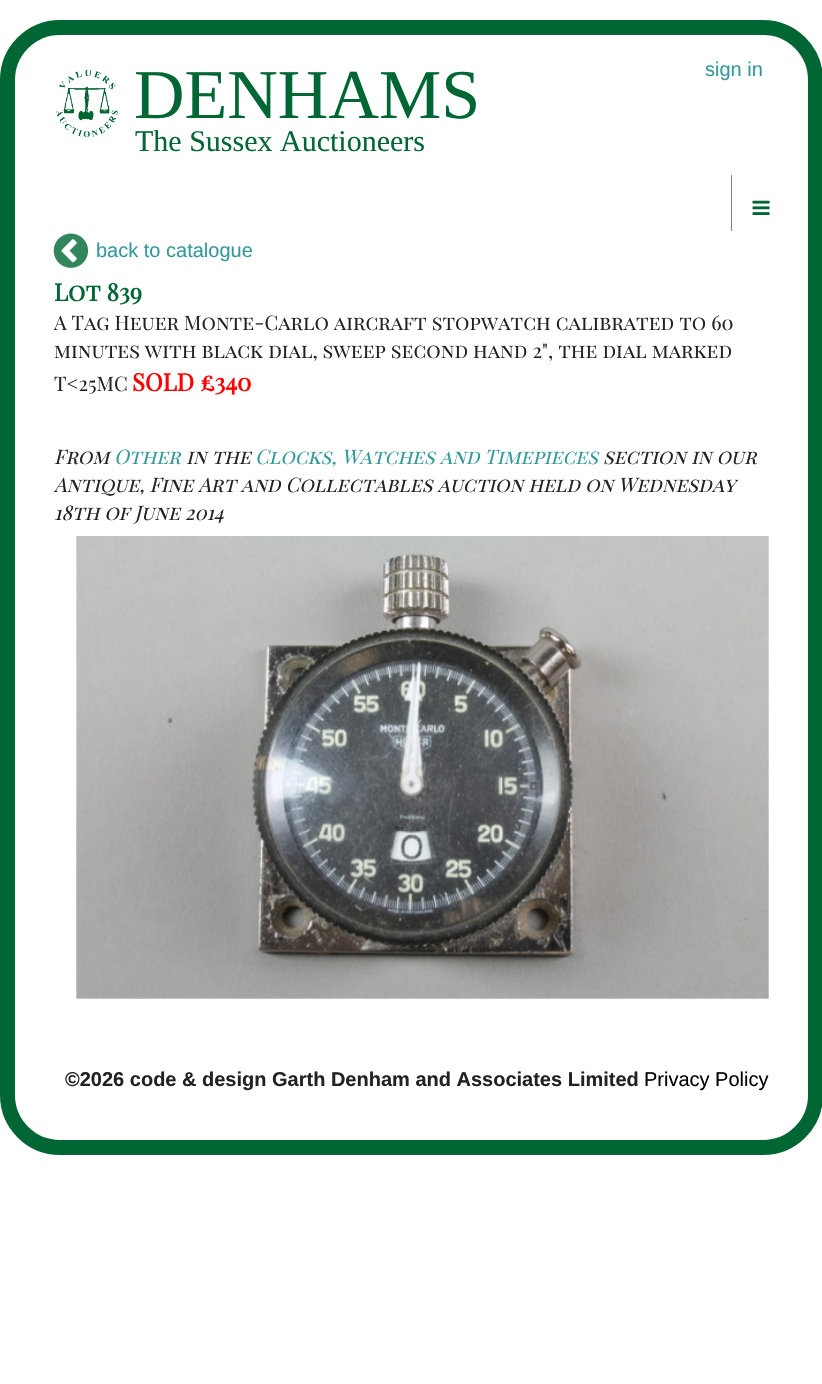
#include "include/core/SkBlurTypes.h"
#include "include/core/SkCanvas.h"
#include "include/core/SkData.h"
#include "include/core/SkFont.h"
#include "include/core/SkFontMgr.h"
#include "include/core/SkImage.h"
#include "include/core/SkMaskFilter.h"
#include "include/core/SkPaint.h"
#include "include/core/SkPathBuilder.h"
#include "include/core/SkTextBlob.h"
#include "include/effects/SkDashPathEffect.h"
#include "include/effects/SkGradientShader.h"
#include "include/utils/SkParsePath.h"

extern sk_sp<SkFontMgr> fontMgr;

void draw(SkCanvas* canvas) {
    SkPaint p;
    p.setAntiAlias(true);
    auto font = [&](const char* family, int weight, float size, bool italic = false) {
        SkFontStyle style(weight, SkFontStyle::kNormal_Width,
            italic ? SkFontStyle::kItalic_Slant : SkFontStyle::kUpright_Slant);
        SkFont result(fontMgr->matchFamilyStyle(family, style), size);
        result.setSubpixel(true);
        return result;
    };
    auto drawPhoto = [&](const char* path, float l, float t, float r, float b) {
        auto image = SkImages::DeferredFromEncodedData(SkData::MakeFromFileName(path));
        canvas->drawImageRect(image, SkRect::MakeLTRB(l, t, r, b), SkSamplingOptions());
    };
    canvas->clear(0xFFFFFFFF);
    p.setStyle(SkPaint::kStroke_Style);
    p.setStrokeWidth(15);
    p.setColor(0xFF006633);
    canvas->drawRoundRect(SkRect::MakeLTRB(7.5f, 27.5f, 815.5f, 1147.5f), 52.5f, 52.5f, p);
    drawPhoto("media/1.png", 56, 70, 118, 138);
    auto font1 = font("Liberation Serif", 400, 70);
    p.setStyle(SkPaint::kFill_Style);
    canvas->drawString("DENHAMS", 134, 118, font1, p);
    auto font2 = font("Liberation Sans", 400, 20);
    p.setColor(0xFF339999);
    canvas->drawString("sign in", 705, 76, font2, p);
    auto font3 = font("Liberation Serif", 400, 30);
    p.setColor(0xFF006633);
    canvas->drawString("The Sussex Auctioneers", 135, 151, font3, p);
    p.setColor(0xFF808080);
    canvas->drawRect(SkRect::MakeLTRB(731, 175, 732, 231), p);
    drawPhoto("media/2.png", 752, 200, 770, 215);
    drawPhoto("media/3.png", 53, 233, 89, 268);
    p.setColor(0xFF339999);
    canvas->drawString("back to catalogue", 96, 257, font2, p);
    auto font4 = font("Playfair Display SC", 700, 24);
    p.setColor(0xFF006633);
    canvas->drawString("Lot 839", 54, 301, font4, p);
    auto font5 = font("Playfair Display SC", 400, 20);
    p.setColor(0xFF222222);
    {
        const struct { const char* s; float x, y; } items[] = {
            {"A Tag Heuer Monte-Carlo aircraft stopwatch calibrated to 60", 54, 330},
            {"minutes with black dial, sweep second hand 2\", the dial marked", 54, 358},
            {"T<25MC", 54, 391},
        };
        for (auto [s, x, y] : items) {
            canvas->drawString(s, x, y, font5, p);
        }
    }
    p.setColor(0xFFFF0000);
    canvas->drawString("SOLD £340", 132, 391, font4, p);
    auto font6 = font("Playfair Display SC", 400, 20, true);
    p.setColor(0xFF222222);
    canvas->drawString("From", 54, 464, font6, p);
    p.setColor(0xFF339999);
    canvas->drawString("Other", 114, 464, font6, p);
    p.setColor(0xFF222222);
    canvas->drawString("in the", 186, 464, font6, p);
    p.setColor(0xFF339999);
    canvas->drawString("Clocks, Watches and Timepieces", 255, 464, font6, p);
    p.setColor(0xFF222222);
    {
        const struct { const char* s; float x, y; } items[] = {
            {"section in our", 603, 464},
            {"Antique, Fine Art and Collectables auction held on Wednesday", 54, 492},
            {"18th of June 2014", 54, 520},
        };
        for (auto [s, x, y] : items) {
            canvas->drawString(s, x, y, font6, p);
        }
    }
    drawPhoto("media/4.png", 76, 536, 769, 999);
    auto font7 = font("Liberation Sans", 700, 20);
    canvas->drawString("©2026 code & design Garth Denham and Associates Limited", 65, 1086, font7, p);
    p.setColor(0xFF000000);
    canvas->drawString("Privacy Policy", 644, 1086, font2, p);
}
